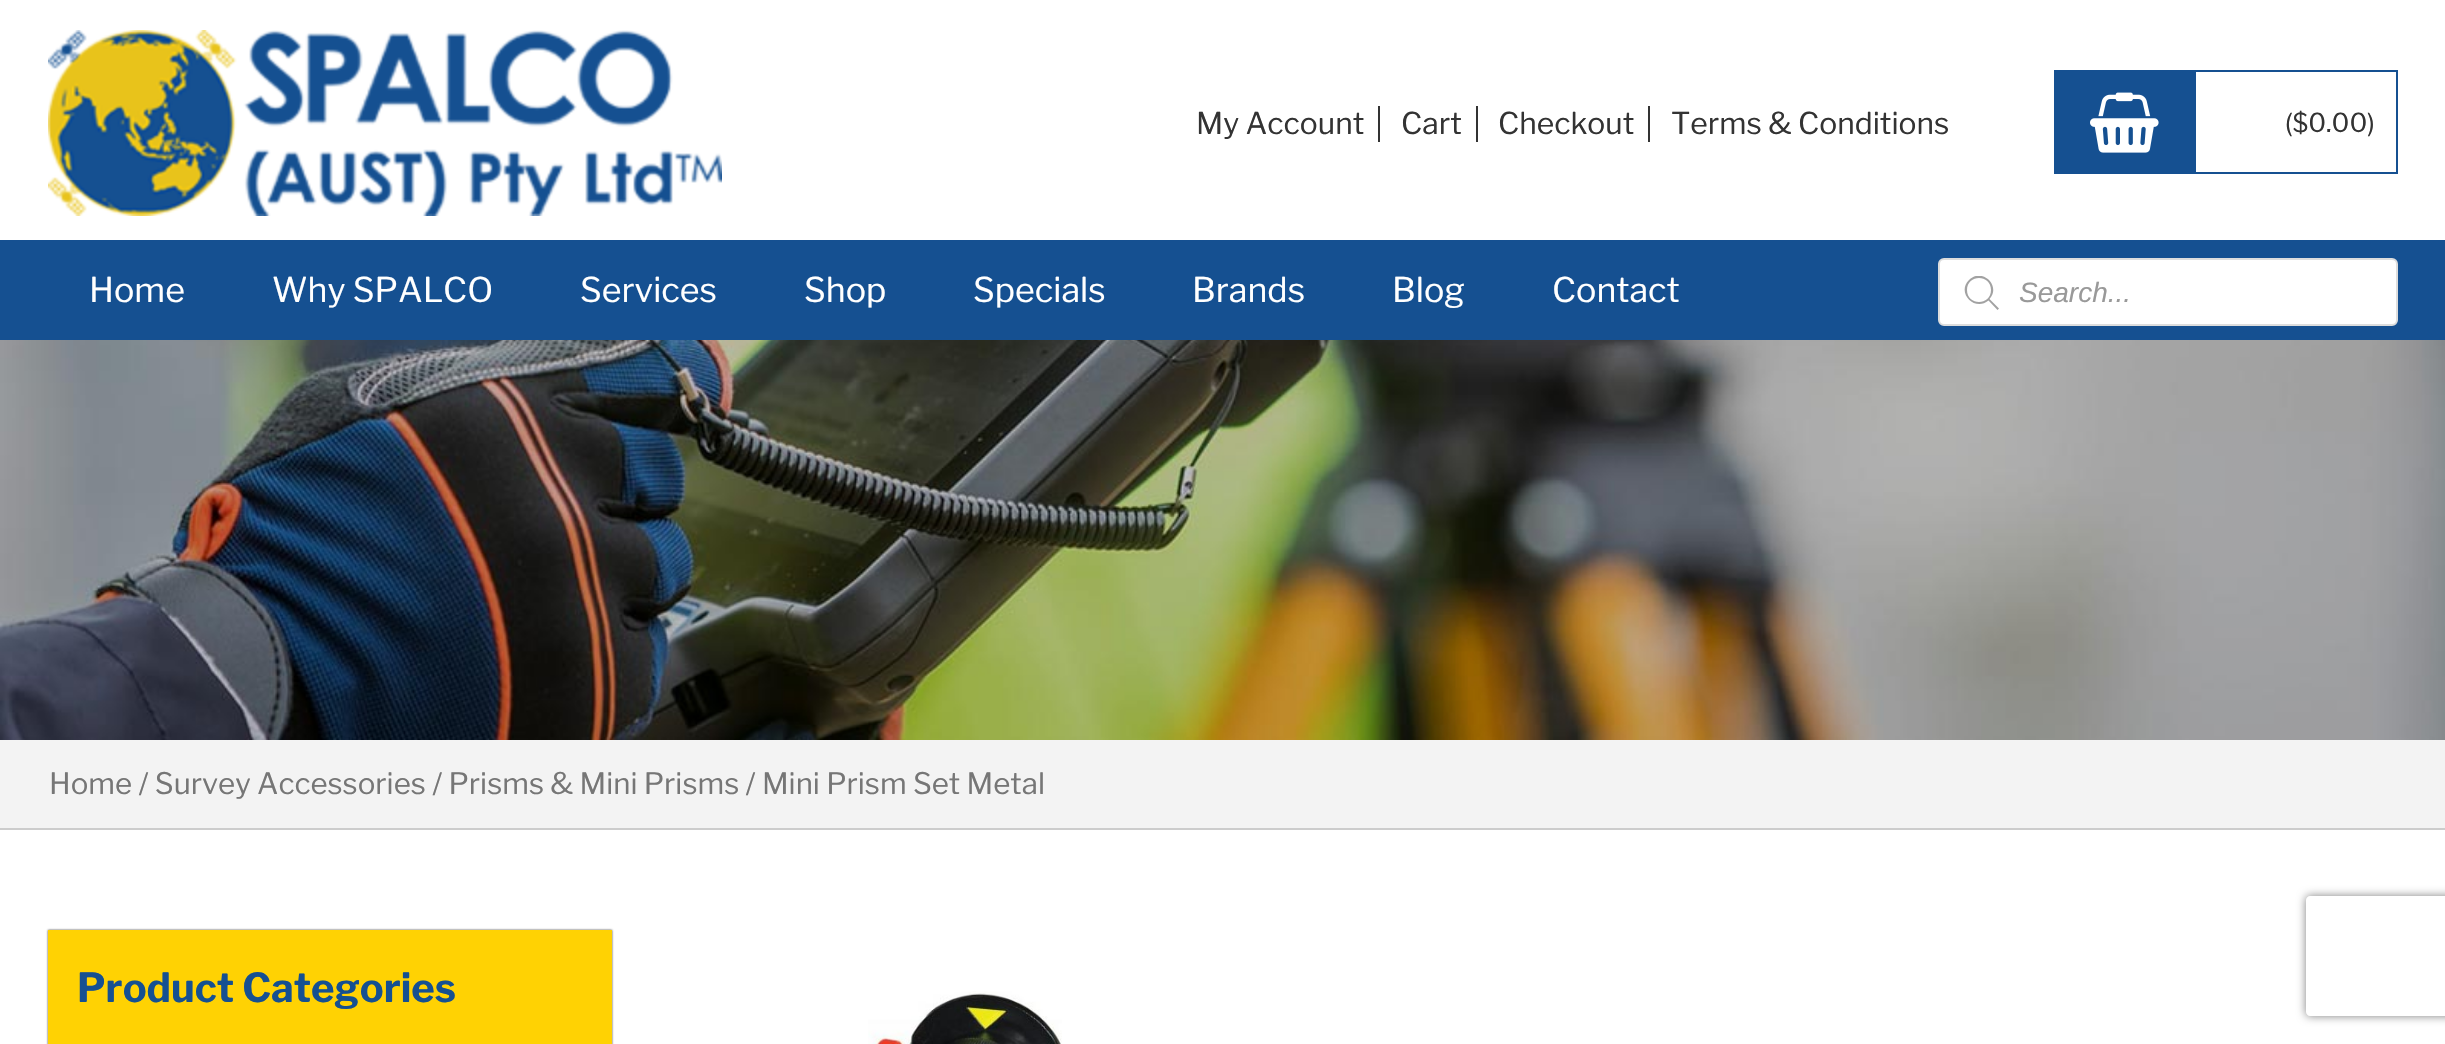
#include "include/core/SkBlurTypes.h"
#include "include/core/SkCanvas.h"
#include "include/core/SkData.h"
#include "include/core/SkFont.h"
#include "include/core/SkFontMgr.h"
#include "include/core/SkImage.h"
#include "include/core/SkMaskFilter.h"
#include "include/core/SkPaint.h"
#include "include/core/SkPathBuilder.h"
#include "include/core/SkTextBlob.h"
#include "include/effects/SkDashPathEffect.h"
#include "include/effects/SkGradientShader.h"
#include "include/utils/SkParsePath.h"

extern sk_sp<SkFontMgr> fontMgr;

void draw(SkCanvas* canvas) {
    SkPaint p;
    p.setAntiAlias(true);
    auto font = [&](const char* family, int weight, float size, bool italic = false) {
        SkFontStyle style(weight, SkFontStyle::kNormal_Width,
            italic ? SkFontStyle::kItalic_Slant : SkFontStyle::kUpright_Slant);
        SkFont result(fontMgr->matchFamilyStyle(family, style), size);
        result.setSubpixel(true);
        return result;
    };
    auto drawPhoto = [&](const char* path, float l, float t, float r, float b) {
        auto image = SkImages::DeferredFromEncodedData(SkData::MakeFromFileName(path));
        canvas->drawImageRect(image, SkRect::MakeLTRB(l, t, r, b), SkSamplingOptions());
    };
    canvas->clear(0xFFFFFFFF);
    drawPhoto("media/1.png", 48, 30, 722, 216);
    auto font1 = font("Libre Franklin", 400, 30);
    p.setColor(0xFF333333);
    canvas->drawString("My Account", 1196, 134, font1, p);
    canvas->drawRect(SkRect::MakeLTRB(1378, 106, 1380, 142), p);
    canvas->drawString("Cart", 1401, 134, font1, p);
    canvas->drawRect(SkRect::MakeLTRB(1476, 106, 1478, 142), p);
    canvas->drawString("Checkout", 1498, 134, font1, p);
    canvas->drawRect(SkRect::MakeLTRB(1648, 106, 1650, 142), p);
    canvas->drawString("Terms & Conditions", 1671, 134, font1, p);
    p.setStyle(SkPaint::kStroke_Style);
    p.setStrokeWidth(2);
    p.setColor(0xFF155091);
    canvas->drawRect(SkRect::MakeLTRB(2055, 71, 2397, 173), p);
    p.setStyle(SkPaint::kFill_Style);
    canvas->drawRect(SkRect::MakeLTRB(2056, 72, 2196, 172), p);
    drawPhoto("media/2.png", 2090, 92, 2159, 153);
    auto font2 = font("Libre Franklin", 400, 26);
    p.setColor(0xFF333333);
    canvas->drawString("($0.00)", 2285, 132, font2, p);
    p.setColor(0xFF155091);
    canvas->drawRect(SkRect::MakeLTRB(0, 240, 2445, 340), p);
    auto font3 = font("Libre Franklin", 400, 34);
    p.setColor(0xFFFFFFFF);
    {
        const struct { const char* s; float x, y; } items[] = {
            {"Home", 89, 302},
            {"Why SPALCO", 272, 302},
            {"Services", 580, 302},
            {"Shop", 804, 302},
            {"Specials", 973, 302},
            {"Brands", 1192, 302},
            {"Blog", 1392, 302},
            {"Contact", 1552, 302},
        };
        for (auto [s, x, y] : items) {
            canvas->drawString(s, x, y, font3, p);
        }
    }
    canvas->drawRoundRect(SkRect::MakeLTRB(1939, 259, 2397, 325), 5, 5, p);
    p.setStyle(SkPaint::kStroke_Style);
    p.setColor(0xFFDDDDDD);
    canvas->drawRoundRect(SkRect::MakeLTRB(1939, 259, 2397, 325), 5, 5, p);
    canvas->save();
    canvas->clipRect(SkRect::MakeLTRB(1962, 276, 2002, 310));
    p.setStyle(SkPaint::kFill_Style);
    p.setColor(0xFFA2A2A2);
    canvas->drawPath(SkPathBuilder().moveTo(1999, 308.5f).lineTo(1989.5f, 299).cubicTo(2001.5f, 286, 1982, 267, 1969, 280).cubicTo(1956, 293, 1975, 312, 1988.5f, 300.5f).lineTo(1997.5f, 310).close().moveTo(1967, 290).cubicTo(1967, 274, 1991, 274, 1991, 290).cubicTo(1991, 306, 1967, 306, 1967, 290).close().detach(), p);
    canvas->restore();
    auto font4 = font("Liberation Sans", 400, 28, true);
    p.setColor(0xFF999999);
    canvas->drawString("Search...", 2019, 302, font4, p);
    drawPhoto("media/3.png", 0, 340, 2445, 740);
    p.setColor(0xFFF3F3F3);
    canvas->drawRect(SkRect::MakeLTRB(0, 740, 2445, 828), p);
    p.setColor(0xFFCCCCCC);
    canvas->drawRect(SkRect::MakeLTRB(0, 828, 2445, 830), p);
    auto font5 = font("Libre Franklin", 400, 29.45f);
    p.setColor(0xFF767676);
    canvas->drawString("Home / Survey Accessories / Prisms & Mini Prisms / Mini Prism Set Metal", 49, 794, font5, p);
    p.setColor(0xBF000000);
    p.setMaskFilter(SkMaskFilter::MakeBlur(kNormal_SkBlurStyle, 1));
    canvas->drawRect(SkRect::MakeLTRB(48, 930, 612, 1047), p);
    p.setMaskFilter(nullptr);
    p.setColor(0xFFFFD203);
    canvas->drawRect(SkRect::MakeLTRB(48, 930, 612, 1044), p);
    auto font6 = font("Libre Franklin", 700, 40);
    p.setColor(0xFF155091);
    canvas->drawString("Product Categories", 77, 1002, font6, p);
    drawPhoto("media/4.png", 868, 991, 1062, 1044);
    canvas->save();
    canvas->clipPath(SkPathBuilder(SkPathFillType::kEvenOdd).moveTo(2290, 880).lineTo(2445, 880).lineTo(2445, 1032).lineTo(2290, 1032).close().moveTo(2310, 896).lineTo(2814, 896).cubicTo(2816, 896, 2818, 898, 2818, 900).lineTo(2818, 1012).cubicTo(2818, 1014, 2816, 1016, 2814, 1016).lineTo(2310, 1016).cubicTo(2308, 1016, 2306, 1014, 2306, 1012).lineTo(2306, 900).cubicTo(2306, 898, 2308, 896, 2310, 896).close().detach(), true);
    p.setColor(0xFF808080);
    p.setMaskFilter(SkMaskFilter::MakeBlur(kNormal_SkBlurStyle, 5));
    canvas->drawRoundRect(SkRect::MakeLTRB(2306, 896, 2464, 1016), 4, 4, p);
    p.setMaskFilter(nullptr);
    canvas->restore();
}
